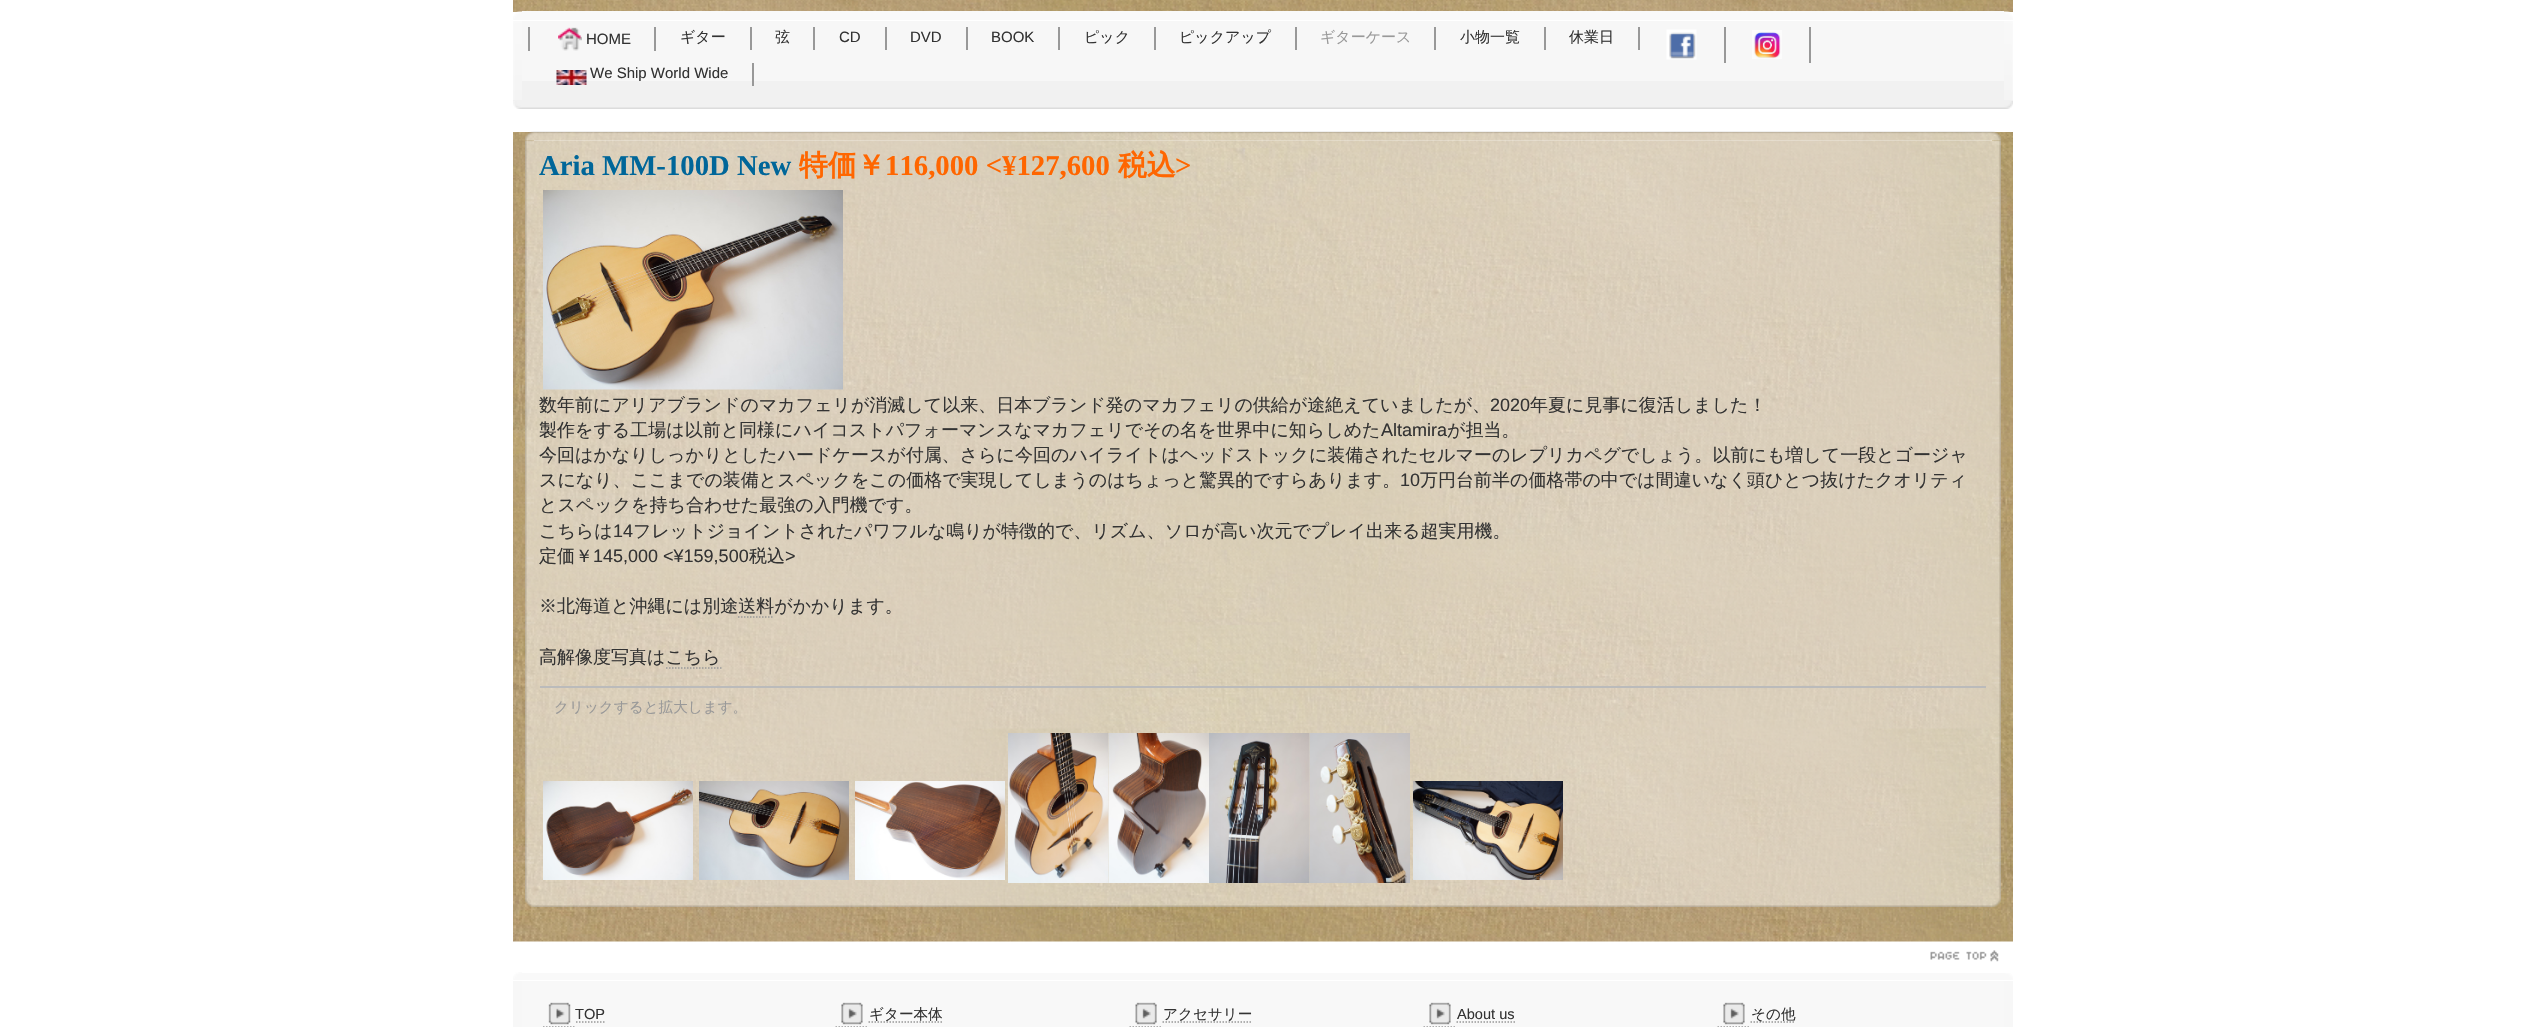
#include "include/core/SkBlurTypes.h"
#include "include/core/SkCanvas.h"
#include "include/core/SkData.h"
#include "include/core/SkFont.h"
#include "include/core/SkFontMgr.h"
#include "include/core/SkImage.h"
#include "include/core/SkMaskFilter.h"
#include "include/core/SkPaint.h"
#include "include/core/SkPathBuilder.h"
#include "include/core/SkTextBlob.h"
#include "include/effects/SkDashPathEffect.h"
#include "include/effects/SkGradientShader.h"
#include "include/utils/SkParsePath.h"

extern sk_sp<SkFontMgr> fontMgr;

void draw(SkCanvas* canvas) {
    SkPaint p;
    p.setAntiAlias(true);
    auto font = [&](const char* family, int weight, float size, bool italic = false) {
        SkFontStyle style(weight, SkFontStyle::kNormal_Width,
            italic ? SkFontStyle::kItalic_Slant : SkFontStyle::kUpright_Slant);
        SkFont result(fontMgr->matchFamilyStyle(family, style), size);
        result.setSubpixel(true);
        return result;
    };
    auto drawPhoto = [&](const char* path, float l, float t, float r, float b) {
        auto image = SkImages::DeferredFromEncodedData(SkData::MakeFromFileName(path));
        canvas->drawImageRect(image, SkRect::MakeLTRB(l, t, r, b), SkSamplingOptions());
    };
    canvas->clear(0xFFFFFFFF);
    drawPhoto("media/1.png", 513, 0, 2013, 12);
    drawPhoto("media/2.png", 513, 11, 522, 20);
    p.setColor(0xFFF9F9F9);
    canvas->drawRect(SkRect::MakeLTRB(522, 11, 2004, 20), p);
    drawPhoto("media/3.png", 2004, 11, 2013, 20);
    p.setColor(0xFFF1F1F1);
    canvas->drawRect(SkRect::MakeLTRB(513, 100, 522, 101), p);
    drawPhoto("media/4.png", 513, 21, 522, 100);
    {
        const struct { float l, t, r, b; SkColor color; } items[] = {
            {522, 81, 2004, 101, 0xFFF1F1F1},
            {522, 21, 2004, 81, 0xFFF7F7F7},
            {654, 27, 656, 51, 0xFF999999},
            {528, 27, 530, 51, 0xFF999999},
        };
        for (auto [l, t, r, b, color] : items) {
            p.setColor(color);
            canvas->drawRect(SkRect::MakeLTRB(l, t, r, b), p);
        }
    }
    drawPhoto("media/5.png", 558, 27, 582, 51);
    auto font1 = font("Liberation Sans", 400, 15);
    p.setColor(0xFF333333);
    canvas->drawString("HOME", 586, 44, font1, p);
    p.setColor(0xFF999999);
    canvas->drawRect(SkRect::MakeLTRB(750, 27, 752, 50), p);
    auto font2 = font("WenQuanYi Zen Hei", 500, 15);
    p.setColor(0xFF333333);
    canvas->drawString("ギター", 680, 42, font2, p);
    p.setColor(0xFF999999);
    canvas->drawRect(SkRect::MakeLTRB(813, 27, 815, 50), p);
    p.setColor(0xFF333333);
    canvas->drawString("弦", 775, 42, font2, p);
    p.setColor(0xFF999999);
    canvas->drawRect(SkRect::MakeLTRB(885, 27, 887, 50), p);
    p.setColor(0xFF333333);
    canvas->drawString("CD", 839, 42, font1, p);
    p.setColor(0xFF999999);
    canvas->drawRect(SkRect::MakeLTRB(966, 27, 968, 50), p);
    p.setColor(0xFF333333);
    canvas->drawString("DVD", 910, 42, font1, p);
    p.setColor(0xFF999999);
    canvas->drawRect(SkRect::MakeLTRB(1058, 27, 1060, 50), p);
    p.setColor(0xFF333333);
    canvas->drawString("BOOK", 991, 42, font1, p);
    p.setColor(0xFF999999);
    canvas->drawRect(SkRect::MakeLTRB(1154, 27, 1156, 50), p);
    p.setColor(0xFF333333);
    canvas->drawString("ピック", 1084, 42, font2, p);
    p.setColor(0xFF999999);
    canvas->drawRect(SkRect::MakeLTRB(1295, 27, 1297, 50), p);
    p.setColor(0xFF333333);
    canvas->drawString("ピックアップ", 1179, 42, font2, p);
    p.setColor(0xFF999999);
    canvas->drawRect(SkRect::MakeLTRB(1434, 27, 1436, 50), p);
    canvas->drawString("ギターケース", 1320, 42, font2, p);
    canvas->drawRect(SkRect::MakeLTRB(1544, 27, 1546, 50), p);
    p.setColor(0xFF333333);
    canvas->drawString("小物一覧", 1460, 42, font2, p);
    p.setColor(0xFF999999);
    canvas->drawRect(SkRect::MakeLTRB(1638, 27, 1640, 50), p);
    p.setColor(0xFF333333);
    canvas->drawString("休業日", 1569, 42, font2, p);
    p.setColor(0xFF999999);
    canvas->drawRect(SkRect::MakeLTRB(1724, 27, 1726, 63), p);
    drawPhoto("media/6.png", 1666, 29, 1697, 60);
    canvas->drawRect(SkRect::MakeLTRB(1809, 27, 1811, 63), p);
    drawPhoto("media/7.png", 1752, 30, 1782, 59);
    canvas->drawRect(SkRect::MakeLTRB(752, 63, 754, 86), p);
    drawPhoto("media/8.png", 556, 70, 587, 85);
    p.setColor(0xFF333333);
    canvas->drawString("We Ship World Wide", 590, 78, font1, p);
    p.setColor(0xFFF1F1F1);
    canvas->drawRect(SkRect::MakeLTRB(2004, 100, 2013, 101), p);
    drawPhoto("media/9.png", 2004, 21, 2013, 100);
    drawPhoto("media/10.png", 513, 101, 522, 109);
    drawPhoto("media/11.png", 522, 101, 2004, 109);
    drawPhoto("media/12.png", 2004, 101, 2013, 109);
    drawPhoto("media/13.png", 513, 132, 2013, 942);
    drawPhoto("media/14.png", 525, 131, 534, 141);
    drawPhoto("media/15.png", 534, 131, 1992, 141);
    drawPhoto("media/16.png", 1992, 131, 2001, 141);
    drawPhoto("media/17.png", 525, 140, 534, 898);
    p.setColor(0x80FFFFFF);
    canvas->drawRect(SkRect::MakeLTRB(534, 140, 1992, 898), p);
    auto font3 = font("Liberation Serif", 700, 28.75f);
    p.setColor(0xFF006699);
    canvas->drawString("Aria MM-100D New", 539, 175, font3, p);
    auto font4 = font("WenQuanYi Zen Hei", 700, 28.75f);
    p.setColor(0xFFFF6600);
    canvas->drawString("特価￥", 799, 175, font4, p);
    canvas->drawString("116,000 <¥127,600", 885, 175, font3, p);
    canvas->drawString("税込", 1118, 175, font4, p);
    canvas->drawString(">", 1175, 175, font3, p);
    drawPhoto("media/18.png", 543, 190, 843, 390);
    auto font5 = font("WenQuanYi Zen Hei", 500, 18);
    p.setColor(0xFF333333);
    canvas->drawString("数年前にアリアブランドのマカフェリが消滅して以来、日本ブランド発のマカフェリの供給が途絶えていましたが、", 539, 411, font5, p);
    auto font6 = font("Liberation Sans", 400, 18);
    canvas->drawString("2020", 1490, 411, font6, p);
    canvas->drawString("年夏に見事に復活しました！", 1530, 411, font5, p);
    canvas->drawString("製作をする工場は以前と同様にハイコストパフォーマンスなマカフェリでその名を世界中に知らしめた", 539, 436, font5, p);
    canvas->drawString("Altamira", 1381, 436, font6, p);
    {
        const struct { const char* s; float x, y; } items[] = {
            {"が担当。", 1447, 436},
            {"今回はかなりしっかりとしたハードケースが付属、さらに今回のハイライトはヘッドストックに装備されたセルマーのレプリカペグでしょう。以前にも増して一段とゴージャ", 539, 461},
            {"スになり、ここまでの装備とスペックをこの価格で実現してしまうのはちょっと驚異的ですらあります。", 539, 486},
        };
        for (auto [s, x, y] : items) {
            canvas->drawString(s, x, y, font5, p);
        }
    }
    canvas->drawString("10", 1400, 486, font6, p);
    {
        const struct { const char* s; float x, y; } items[] = {
            {"万円台前半の価格帯の中では間違いなく頭ひとつ抜けたクオリティ", 1420, 486},
            {"とスペックを持ち合わせた最強の入門機です。", 539, 511},
            {"こちらは", 539, 537},
        };
        for (auto [s, x, y] : items) {
            canvas->drawString(s, x, y, font5, p);
        }
    }
    canvas->drawString("14", 613, 537, font6, p);
    canvas->drawString("フレットジョイントされたパワフルな鳴りが特徴的で、リズム、ソロが高い次元でプレイ出来る超実用機。", 633, 537, font5, p);
    canvas->drawString("定価￥", 539, 562, font5, p);
    canvas->drawString("145,000 <¥159,500", 593, 562, font6, p);
    canvas->drawString("税込", 749, 562, font5, p);
    canvas->drawString(">", 785, 562, font6, p);
    canvas->drawString("※北海道と沖縄には別途送料がかかります。", 539, 612, font5, p);
    p.setStyle(SkPaint::kStroke_Style);
    p.setStrokeWidth(1.5f);
    p.setColor(0xFF999999);
    p.setPathEffect(SkDashPathEffect::Make({{1.5f, 1.5f}}, 0));
    canvas->drawPath(SkPathBuilder().moveTo(738, 617).lineTo(774, 617).detach(), p);
    p.setPathEffect(nullptr);
    p.setStyle(SkPaint::kFill_Style);
    p.setColor(0xFF333333);
    canvas->drawString("高解像度写真はこちら", 539, 663, font5, p);
    p.setStyle(SkPaint::kStroke_Style);
    p.setColor(0xFF999999);
    p.setPathEffect(SkDashPathEffect::Make({{1.5f, 1.5f}}, 0));
    canvas->drawPath(SkPathBuilder().moveTo(666, 668).lineTo(721.5f, 668).detach(), p);
    p.setPathEffect(nullptr);
    p.setStyle(SkPaint::kFill_Style);
    p.setColor(0xFFBBBBBB);
    canvas->drawRect(SkRect::MakeLTRB(540, 686, 1986, 688), p);
    auto font7 = font("WenQuanYi Zen Hei", 500, 14.6f);
    p.setColor(0xFF999999);
    canvas->drawString("クリックすると拡大します。", 554, 712, font7, p);
    drawPhoto("media/19.png", 543, 781, 693, 880);
    drawPhoto("media/20.png", 699, 781, 849, 880);
    drawPhoto("media/21.png", 855, 781, 1005, 880);
    drawPhoto("media/22.png", 1008, 733, 1109, 883);
    drawPhoto("media/23.png", 1108, 733, 1209, 883);
    drawPhoto("media/24.png", 1209, 733, 1310, 883);
    drawPhoto("media/25.png", 1309, 733, 1410, 883);
    drawPhoto("media/26.png", 1413, 781, 1563, 880);
    drawPhoto("media/27.png", 1992, 140, 2001, 898);
    drawPhoto("media/28.png", 525, 898, 534, 907);
    drawPhoto("media/29.png", 534, 898, 1992, 907);
    drawPhoto("media/30.png", 1992, 898, 2001, 907);
    drawPhoto("media/31.png", 1930, 950, 1999, 962);
    drawPhoto("media/32.png", 513, 972, 522, 980);
    p.setColor(0xFFF9F9F9);
    canvas->drawRect(SkRect::MakeLTRB(522, 973, 2004, 980), p);
    drawPhoto("media/33.png", 2004, 973, 2013, 980);
    p.setColor(0xFFF7F7F7);
    canvas->drawRect(SkRect::MakeLTRB(513, 981, 522, 1027), p);
    p.setColor(0xFFF8F8F8);
    canvas->drawRect(SkRect::MakeLTRB(522, 981, 2004, 1027), p);
    p.setStyle(SkPaint::kStroke_Style);
    p.setColor(0xFF999999);
    p.setPathEffect(SkDashPathEffect::Make({{1.5f, 1.5f}}, 0));
    canvas->drawPath(SkPathBuilder().moveTo(543, 1027).lineTo(576, 1027).moveTo(576, 1022).lineTo(604.5f, 1022).detach(), p);
    p.setPathEffect(nullptr);
    drawPhoto("media/34.png", 548, 1002, 571, 1025);
    auto font8 = font("Liberation Sans", 400, 14.6f);
    p.setStyle(SkPaint::kFill_Style);
    p.setColor(0xFF333333);
    canvas->drawString("TOP", 575, 1019, font8, p);
    drawPhoto("media/35.png", 841, 1002, 863, 1025);
    p.setStyle(SkPaint::kStroke_Style);
    p.setColor(0xFF999999);
    p.setPathEffect(SkDashPathEffect::Make({{1.5f, 1.5f}}, 0));
    canvas->drawPath(SkPathBuilder().moveTo(868.5f, 1022).lineTo(943.5f, 1022).detach(), p);
    p.setPathEffect(nullptr);
    p.setStyle(SkPaint::kFill_Style);
    p.setColor(0xFF333333);
    canvas->drawString("ギター本体", 869, 1019, font7, p);
    p.setStyle(SkPaint::kStroke_Style);
    p.setColor(0xFF999999);
    p.setPathEffect(SkDashPathEffect::Make({{1.5f, 1.5f}}, 0));
    canvas->drawPath(SkPathBuilder().moveTo(835.5f, 1027).lineTo(868.5f, 1027).detach(), p);
    p.setPathEffect(nullptr);
    drawPhoto("media/36.png", 1135, 1002, 1157, 1025);
    p.setPathEffect(SkDashPathEffect::Make({{1.5f, 1.5f}}, 0));
    canvas->drawPath(SkPathBuilder().moveTo(1162.5f, 1022).lineTo(1252.5f, 1022).detach(), p);
    p.setPathEffect(nullptr);
    p.setStyle(SkPaint::kFill_Style);
    p.setColor(0xFF333333);
    canvas->drawString("アクセサリー", 1163, 1019, font7, p);
    p.setStyle(SkPaint::kStroke_Style);
    p.setColor(0xFF999999);
    p.setPathEffect(SkDashPathEffect::Make({{1.5f, 1.5f}}, 0));
    canvas->drawPath(SkPathBuilder().moveTo(1129.5f, 1027).lineTo(1162.5f, 1027).detach(), p);
    p.setPathEffect(nullptr);
    drawPhoto("media/35.png", 1429, 1002, 1451, 1025);
    p.setStyle(SkPaint::kFill_Style);
    p.setColor(0xFF333333);
    canvas->drawString("About us", 1457, 1019, font8, p);
    p.setStyle(SkPaint::kStroke_Style);
    p.setColor(0xFF999999);
    p.setPathEffect(SkDashPathEffect::Make({{1.5f, 1.5f}}, 0));
    canvas->drawPath(SkPathBuilder().moveTo(1423.5f, 1027).lineTo(1456.5f, 1027).detach(), p);
    p.setPathEffect(nullptr);
    p.setPathEffect(SkDashPathEffect::Make({{1.5f, 1.5f}}, 0));
    canvas->drawPath(SkPathBuilder().moveTo(1456.5f, 1022).lineTo(1515, 1022).detach(), p);
    p.setPathEffect(nullptr);
    drawPhoto("media/35.png", 1723, 1002, 1745, 1025);
    p.setPathEffect(SkDashPathEffect::Make({{1.5f, 1.5f}}, 0));
    canvas->drawPath(SkPathBuilder().moveTo(1750.5f, 1022).lineTo(1795.5f, 1022).detach(), p);
    p.setPathEffect(nullptr);
    p.setStyle(SkPaint::kFill_Style);
    p.setColor(0xFF333333);
    canvas->drawString("その他", 1751, 1019, font7, p);
    p.setStyle(SkPaint::kStroke_Style);
    p.setColor(0xFF999999);
    p.setPathEffect(SkDashPathEffect::Make({{1.5f, 1.5f}}, 0));
    canvas->drawPath(SkPathBuilder().moveTo(1717.5f, 1027).lineTo(1750.5f, 1027).detach(), p);
    p.setPathEffect(nullptr);
    p.setStyle(SkPaint::kFill_Style);
    p.setColor(0xFFF7F7F7);
    canvas->drawRect(SkRect::MakeLTRB(2004, 981, 2013, 1027), p);
}
